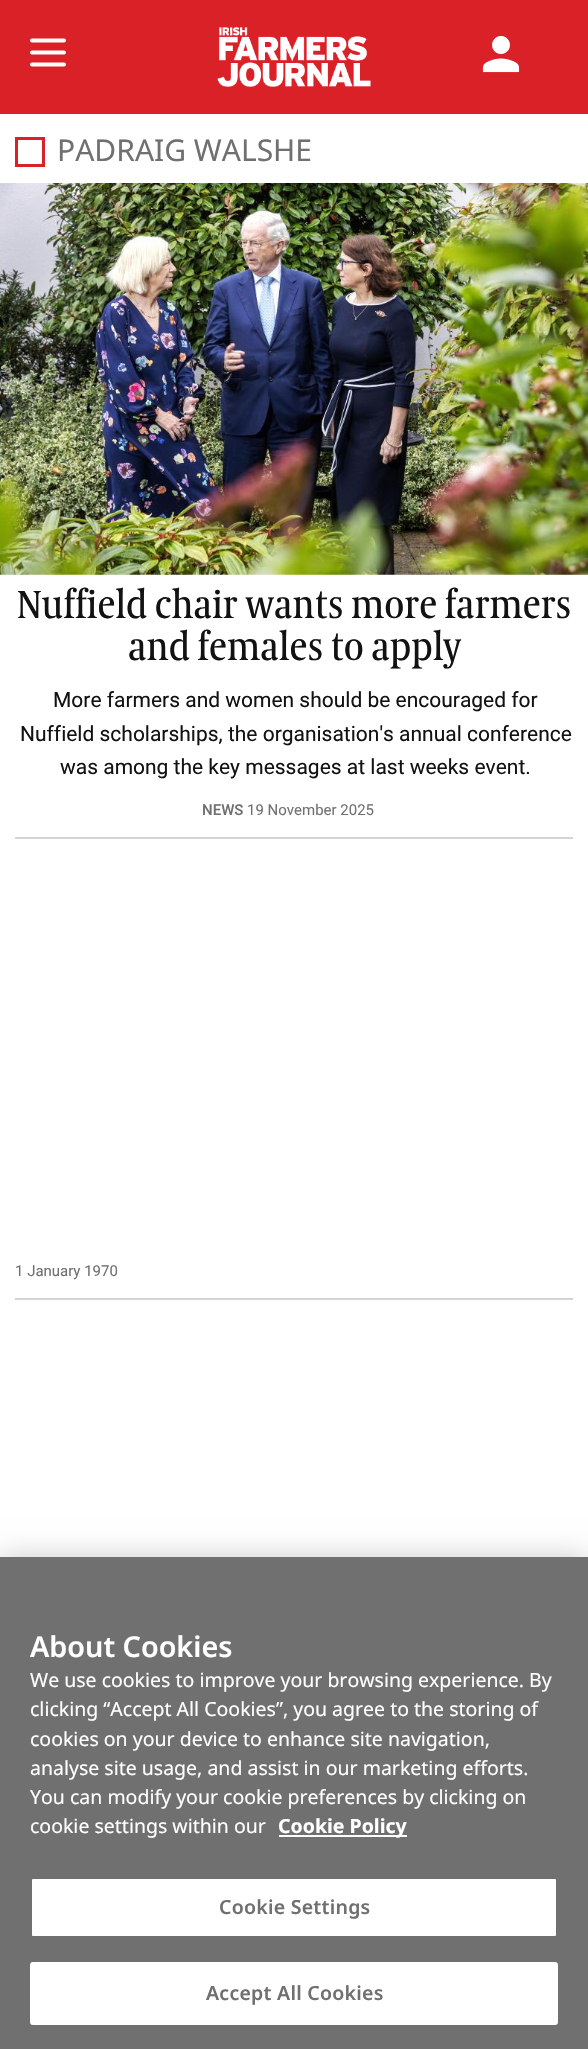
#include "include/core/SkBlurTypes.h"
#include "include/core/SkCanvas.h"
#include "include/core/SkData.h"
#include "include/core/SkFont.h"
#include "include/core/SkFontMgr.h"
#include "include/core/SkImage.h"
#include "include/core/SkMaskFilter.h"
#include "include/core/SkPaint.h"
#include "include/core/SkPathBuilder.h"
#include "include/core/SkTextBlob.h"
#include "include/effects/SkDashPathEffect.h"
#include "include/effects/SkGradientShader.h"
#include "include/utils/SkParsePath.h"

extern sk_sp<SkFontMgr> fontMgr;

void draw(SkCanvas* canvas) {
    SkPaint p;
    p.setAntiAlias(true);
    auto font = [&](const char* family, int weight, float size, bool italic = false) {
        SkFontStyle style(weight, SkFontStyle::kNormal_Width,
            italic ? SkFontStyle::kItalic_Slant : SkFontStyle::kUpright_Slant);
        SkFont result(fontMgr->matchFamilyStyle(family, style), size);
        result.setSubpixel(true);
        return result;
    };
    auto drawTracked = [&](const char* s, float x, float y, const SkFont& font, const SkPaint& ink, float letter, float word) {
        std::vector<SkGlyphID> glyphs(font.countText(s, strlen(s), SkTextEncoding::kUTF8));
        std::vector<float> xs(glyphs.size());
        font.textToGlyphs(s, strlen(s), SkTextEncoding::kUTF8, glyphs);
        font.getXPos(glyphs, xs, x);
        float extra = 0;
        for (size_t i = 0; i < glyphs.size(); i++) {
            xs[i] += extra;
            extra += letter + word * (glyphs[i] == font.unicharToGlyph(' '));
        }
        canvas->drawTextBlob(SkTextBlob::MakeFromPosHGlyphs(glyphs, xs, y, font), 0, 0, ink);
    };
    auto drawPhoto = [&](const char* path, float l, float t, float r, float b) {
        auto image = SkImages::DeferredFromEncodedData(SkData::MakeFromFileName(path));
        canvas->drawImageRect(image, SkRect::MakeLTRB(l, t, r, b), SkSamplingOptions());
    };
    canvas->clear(0xFFFFFFFF);
    p.setColor(0xFFDA2128);
    canvas->drawRect(SkRect::MakeLTRB(0, 0, 588, 114), p);
    p.setStyle(SkPaint::kStroke_Style);
    p.setStrokeWidth(4);
    p.setStrokeCap(SkPaint::kRound_Cap);
    p.setStrokeJoin(SkPaint::kRound_Join);
    p.setColor(0xFFFFFFFF);
    canvas->drawPath(SkPathBuilder().moveTo(32, 40.5f).lineTo(64, 40.5f).moveTo(32, 52.5f).lineTo(64, 52.5f).moveTo(32, 64.5f).lineTo(64, 64.5f).detach(), p);
    drawPhoto("media/1.png", 217, 27, 371, 87);
    drawPhoto("media/2.png", 482, 36, 520, 73);
    p.setStrokeWidth(3);
    p.setStrokeCap(SkPaint::kButt_Cap);
    p.setStrokeJoin(SkPaint::kMiter_Join);
    p.setColor(0xFFDA2128);
    canvas->drawRect(SkRect::MakeLTRB(16.5f, 138.5f, 43.5f, 165.5f), p);
    auto font1 = font("Noto Sans", 400, 30);
    p.setStyle(SkPaint::kFill_Style);
    p.setColor(0xFF707070);
    canvas->drawString("PADRAIG WALSHE", 57, 161, font1, p);
    drawPhoto("media/3.png", 0, 183, 588, 575);
    drawPhoto("media/4.png", 0, 574, 588, 575);
    auto font2 = font("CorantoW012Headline", 400, 39);
    p.setColor(0xFF121212);
    canvas->drawString("Nuffield chair wants more farmers", 17, 618, font2, p);
    canvas->drawString("and females to apply", 128, 660, font2, p);
    auto font3 = font("Roboto", 400, 21);
    {
        const struct { const char* s; float x, y; } items[] = {
            {"More farmers and women should be encouraged for", 53, 707},
            {"Nuffield scholarships, the organisation's annual conference", 20, 741},
            {"was among the key messages at last weeks event.", 60, 774},
        };
        for (auto [s, x, y] : items) {
            canvas->drawString(s, x, y, font3, p);
        }
    }
    p.setColor(0xFFD1D5DB);
    canvas->drawRect(SkRect::MakeLTRB(15, 837, 573, 839), p);
    auto font4 = font("Roboto", 500, 15);
    p.setColor(0xFF707070);
    canvas->drawString("NEWS", 202, 815, font4, p);
    auto font5 = font("Roboto", 400, 15);
    canvas->drawString("19 November 2025", 247, 815, font5, p);
    p.setColor(0xFFD1D5DB);
    canvas->drawRect(SkRect::MakeLTRB(15, 1298, 573, 1300), p);
    p.setColor(0xFF707070);
    canvas->drawString("1 January 1970", 15, 1276, font5, p);
    p.setColor(0x33000000);
    p.setMaskFilter(SkMaskFilter::MakeBlur(kNormal_SkBlurStyle, 13.5f));
    canvas->drawRect(SkRect::MakeLTRB(0, 1557, 588, 2049), p);
    p.setMaskFilter(nullptr);
    p.setColor(0xFF707070);
    canvas->drawRect(SkRect::MakeLTRB(0, 1557, 588, 2049), p);
    auto font6 = font("Noto Sans", 600, 28.75f);
    p.setColor(0xFFFFFFFF);
    canvas->drawString("About Cookies", 30, 1657, font6, p);
    auto font7 = font("Noto Sans", 400, 19.5f);
    {
        const struct { const char* s; float x, y; } items[] = {
            {"We use cookies to improve your browsing experience. By", 30, 1687},
            {"clicking “Accept All Cookies”, you agree to the storing of", 30, 1716},
            {"cookies on your device to enhance site navigation,", 30, 1746},
            {"analyse site usage, and assist in our marketing efforts.", 30, 1775},
            {"You can modify your cookie preferences by clicking on", 30, 1804},
            {"cookie settings within our", 30, 1833},
        };
        for (auto [s, x, y] : items) {
            canvas->drawString(s, x, y, font7, p);
        }
    }
    canvas->drawRect(SkRect::MakeLTRB(279, 1835, 407, 1837), p);
    auto font8 = font("Noto Sans", 700, 19.5f);
    canvas->drawString("Cookie Policy", 278, 1833, font8, p);
    canvas->drawRoundRect(SkRect::MakeLTRB(31, 1878, 557, 1937), 2, 2, p);
    p.setStyle(SkPaint::kStroke_Style);
    p.setStrokeWidth(2);
    p.setColor(0xFF707070);
    canvas->drawRoundRect(SkRect::MakeLTRB(31, 1878, 557, 1937), 2, 2, p);
    auto font9 = font("Noto Sans", 600, 19.5f);
    p.setStyle(SkPaint::kFill_Style);
    drawTracked("Cookie Settings", 219, 1914, font9, p, 0.25f, 0);
    p.setColor(0xFFFFFFFF);
    canvas->drawRoundRect(SkRect::MakeLTRB(31, 1963, 557, 2024), 2, 2, p);
    p.setStyle(SkPaint::kStroke_Style);
    canvas->drawRoundRect(SkRect::MakeLTRB(31, 1963, 557, 2024), 2, 2, p);
    p.setStyle(SkPaint::kFill_Style);
    p.setColor(0xFF707070);
    drawTracked("Accept All Cookies", 206, 2000, font9, p, 0.25f, 0);
}
